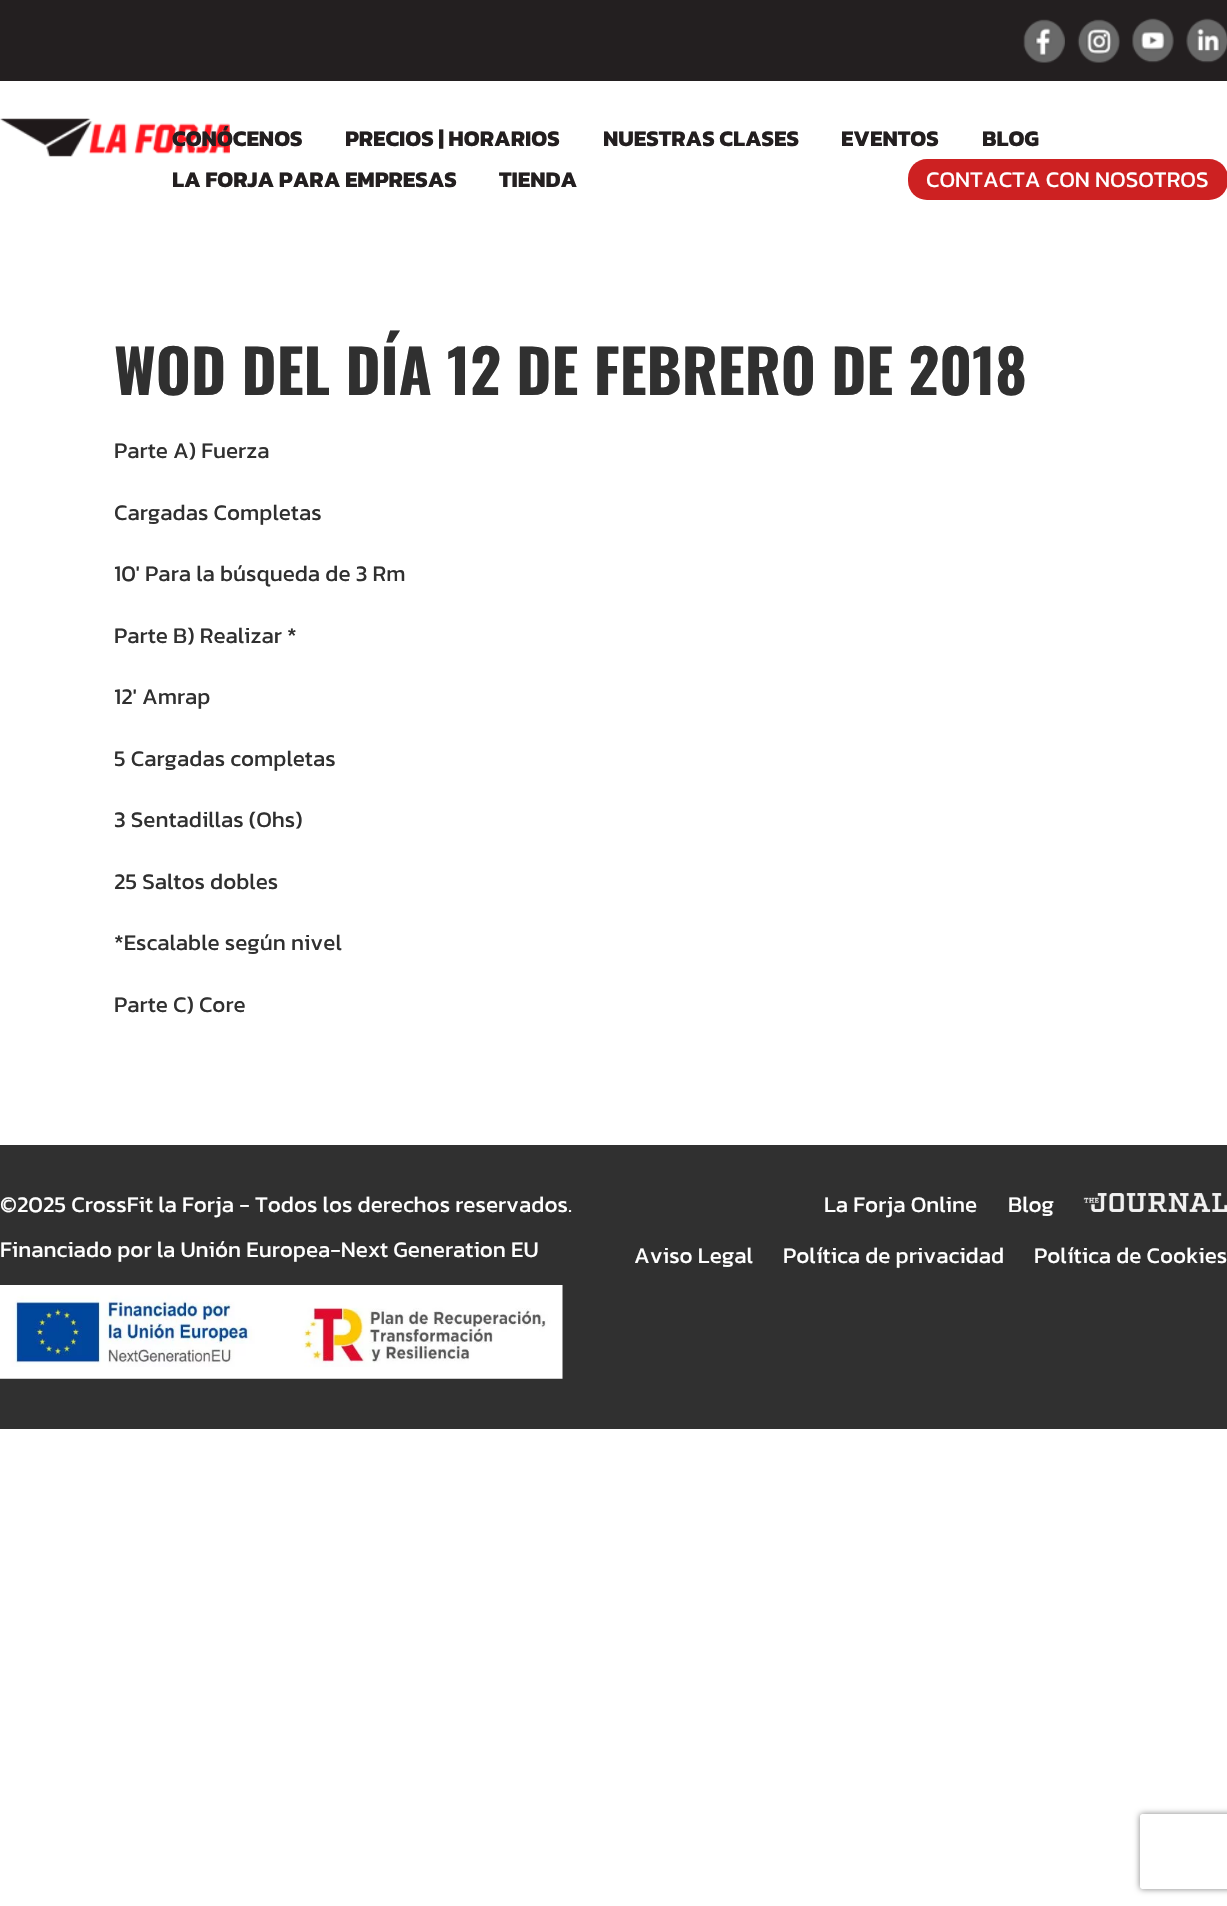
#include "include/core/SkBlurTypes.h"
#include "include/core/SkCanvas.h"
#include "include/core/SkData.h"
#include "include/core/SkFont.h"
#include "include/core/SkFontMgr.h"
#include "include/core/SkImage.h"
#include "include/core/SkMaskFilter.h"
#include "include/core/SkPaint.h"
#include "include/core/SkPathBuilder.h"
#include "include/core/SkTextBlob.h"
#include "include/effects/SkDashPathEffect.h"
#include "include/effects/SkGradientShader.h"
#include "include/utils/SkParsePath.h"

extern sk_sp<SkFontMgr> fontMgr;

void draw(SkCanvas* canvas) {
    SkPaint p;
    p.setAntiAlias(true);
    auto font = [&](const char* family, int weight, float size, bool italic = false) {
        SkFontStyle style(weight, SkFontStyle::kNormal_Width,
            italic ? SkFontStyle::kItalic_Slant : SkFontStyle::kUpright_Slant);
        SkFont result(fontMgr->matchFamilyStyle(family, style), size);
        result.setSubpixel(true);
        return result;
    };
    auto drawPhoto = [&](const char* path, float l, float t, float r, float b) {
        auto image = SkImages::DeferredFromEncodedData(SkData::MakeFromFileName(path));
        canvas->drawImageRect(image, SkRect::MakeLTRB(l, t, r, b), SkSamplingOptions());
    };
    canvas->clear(0xFFFFFFFF);
    p.setColor(0xFF231F20);
    canvas->drawRect(SkRect::MakeLTRB(0, 0, 1227, 81), p);
    drawPhoto("media/1.png", 1023, 19, 1065, 63);
    drawPhoto("media/2.png", 1077, 19, 1120, 63);
    drawPhoto("media/3.png", 1132, 18, 1174, 63);
    drawPhoto("media/4.png", 1186, 18, 1227, 63);
    drawPhoto("media/5.png", 0, 118, 230, 157);
    auto font1 = font("Kanit", 700, 22.5f);
    {
        const struct { const char* s; float x, y; } items[] = {
            {"CONÓCENOS", 172, 146},
            {"PRECIOS | HORARIOS", 345, 146},
            {"NUESTRAS CLASES", 603, 146},
            {"EVENTOS", 841, 146},
            {"BLOG", 982, 146},
            {"LA FORJA PARA EMPRESAS", 172, 187},
            {"TIENDA", 499, 187},
        };
        for (auto [s, x, y] : items) {
            canvas->drawString(s, x, y, font1, p);
        }
    }
    p.setColor(0xFFCD2122);
    canvas->drawRoundRect(SkRect::MakeLTRB(908, 159, 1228, 200), 19, 19, p);
    auto font2 = font("Kanit", 400, 22.5f);
    p.setColor(0xFFFFFFFF);
    canvas->drawString("CONTACTA CON NOSOTROS", 926, 187, font2, p);
    auto font3 = font("Oswald", 700, 60);
    p.setColor(0xFF303030);
    canvas->drawString("WOD DEL DÍA 12 DE FEBRERO DE 2018", 114, 395, font3, p);
    {
        const struct { const char* s; float x, y; } items[] = {
            {"Parte A) Fuerza", 114, 458},
            {"Cargadas Completas", 114, 520},
            {"10′ Para la búsqueda de 3 Rm", 114, 581},
            {"Parte B) Realizar *", 114, 643},
            {"12′ Amrap", 114, 704},
            {"5 Cargadas completas", 114, 766},
            {"3 Sentadillas (Ohs)", 114, 827},
            {"25 Saltos dobles", 114, 889},
            {"*Escalable según nivel", 114, 950},
            {"Parte C) Core", 114, 1012},
        };
        for (auto [s, x, y] : items) {
            canvas->drawString(s, x, y, font2, p);
        }
    }
    canvas->drawRect(SkRect::MakeLTRB(0, 1145, 1227, 1429), p);
    p.setColor(0xFFFFFFFF);
    canvas->drawString("©2025 CrossFit la Forja - Todos los derechos reservados.", 0, 1212, font2, p);
    canvas->drawString("Financiado por la Unión Europea-Next Generation EU", 0, 1257, font2, p);
    drawPhoto("media/6.png", 0, 1285, 563, 1379);
    canvas->drawString("La Forja Online", 824, 1212, font2, p);
    canvas->drawString("Blog", 1008, 1212, font2, p);
    drawPhoto("media/7.png", 1083, 1193, 1227, 1212);
    {
        const struct { const char* s; float x, y; } items[] = {
            {"Aviso Legal", 634, 1263},
            {"Política de privacidad", 783, 1263},
            {"Política de Cookies", 1034, 1263},
        };
        for (auto [s, x, y] : items) {
            canvas->drawString(s, x, y, font2, p);
        }
    }
    canvas->save();
    canvas->clipPath(SkPathBuilder(SkPathFillType::kEvenOdd).moveTo(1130, 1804).lineTo(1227, 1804).lineTo(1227, 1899).lineTo(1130, 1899).close().moveTo(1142.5f, 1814).lineTo(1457.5f, 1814).cubicTo(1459, 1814, 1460, 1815, 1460, 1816.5f).lineTo(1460, 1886.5f).cubicTo(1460, 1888, 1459, 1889, 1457.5f, 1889).lineTo(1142.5f, 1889).cubicTo(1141, 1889, 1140, 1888, 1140, 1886.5f).lineTo(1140, 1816.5f).cubicTo(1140, 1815, 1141, 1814, 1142.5f, 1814).close().detach(), true);
    p.setColor(0xFF808080);
    p.setMaskFilter(SkMaskFilter::MakeBlur(kNormal_SkBlurStyle, 3));
    canvas->drawRoundRect(SkRect::MakeLTRB(1140, 1814, 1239, 1889), 2.5f, 2.5f, p);
    p.setMaskFilter(nullptr);
    canvas->restore();
}
